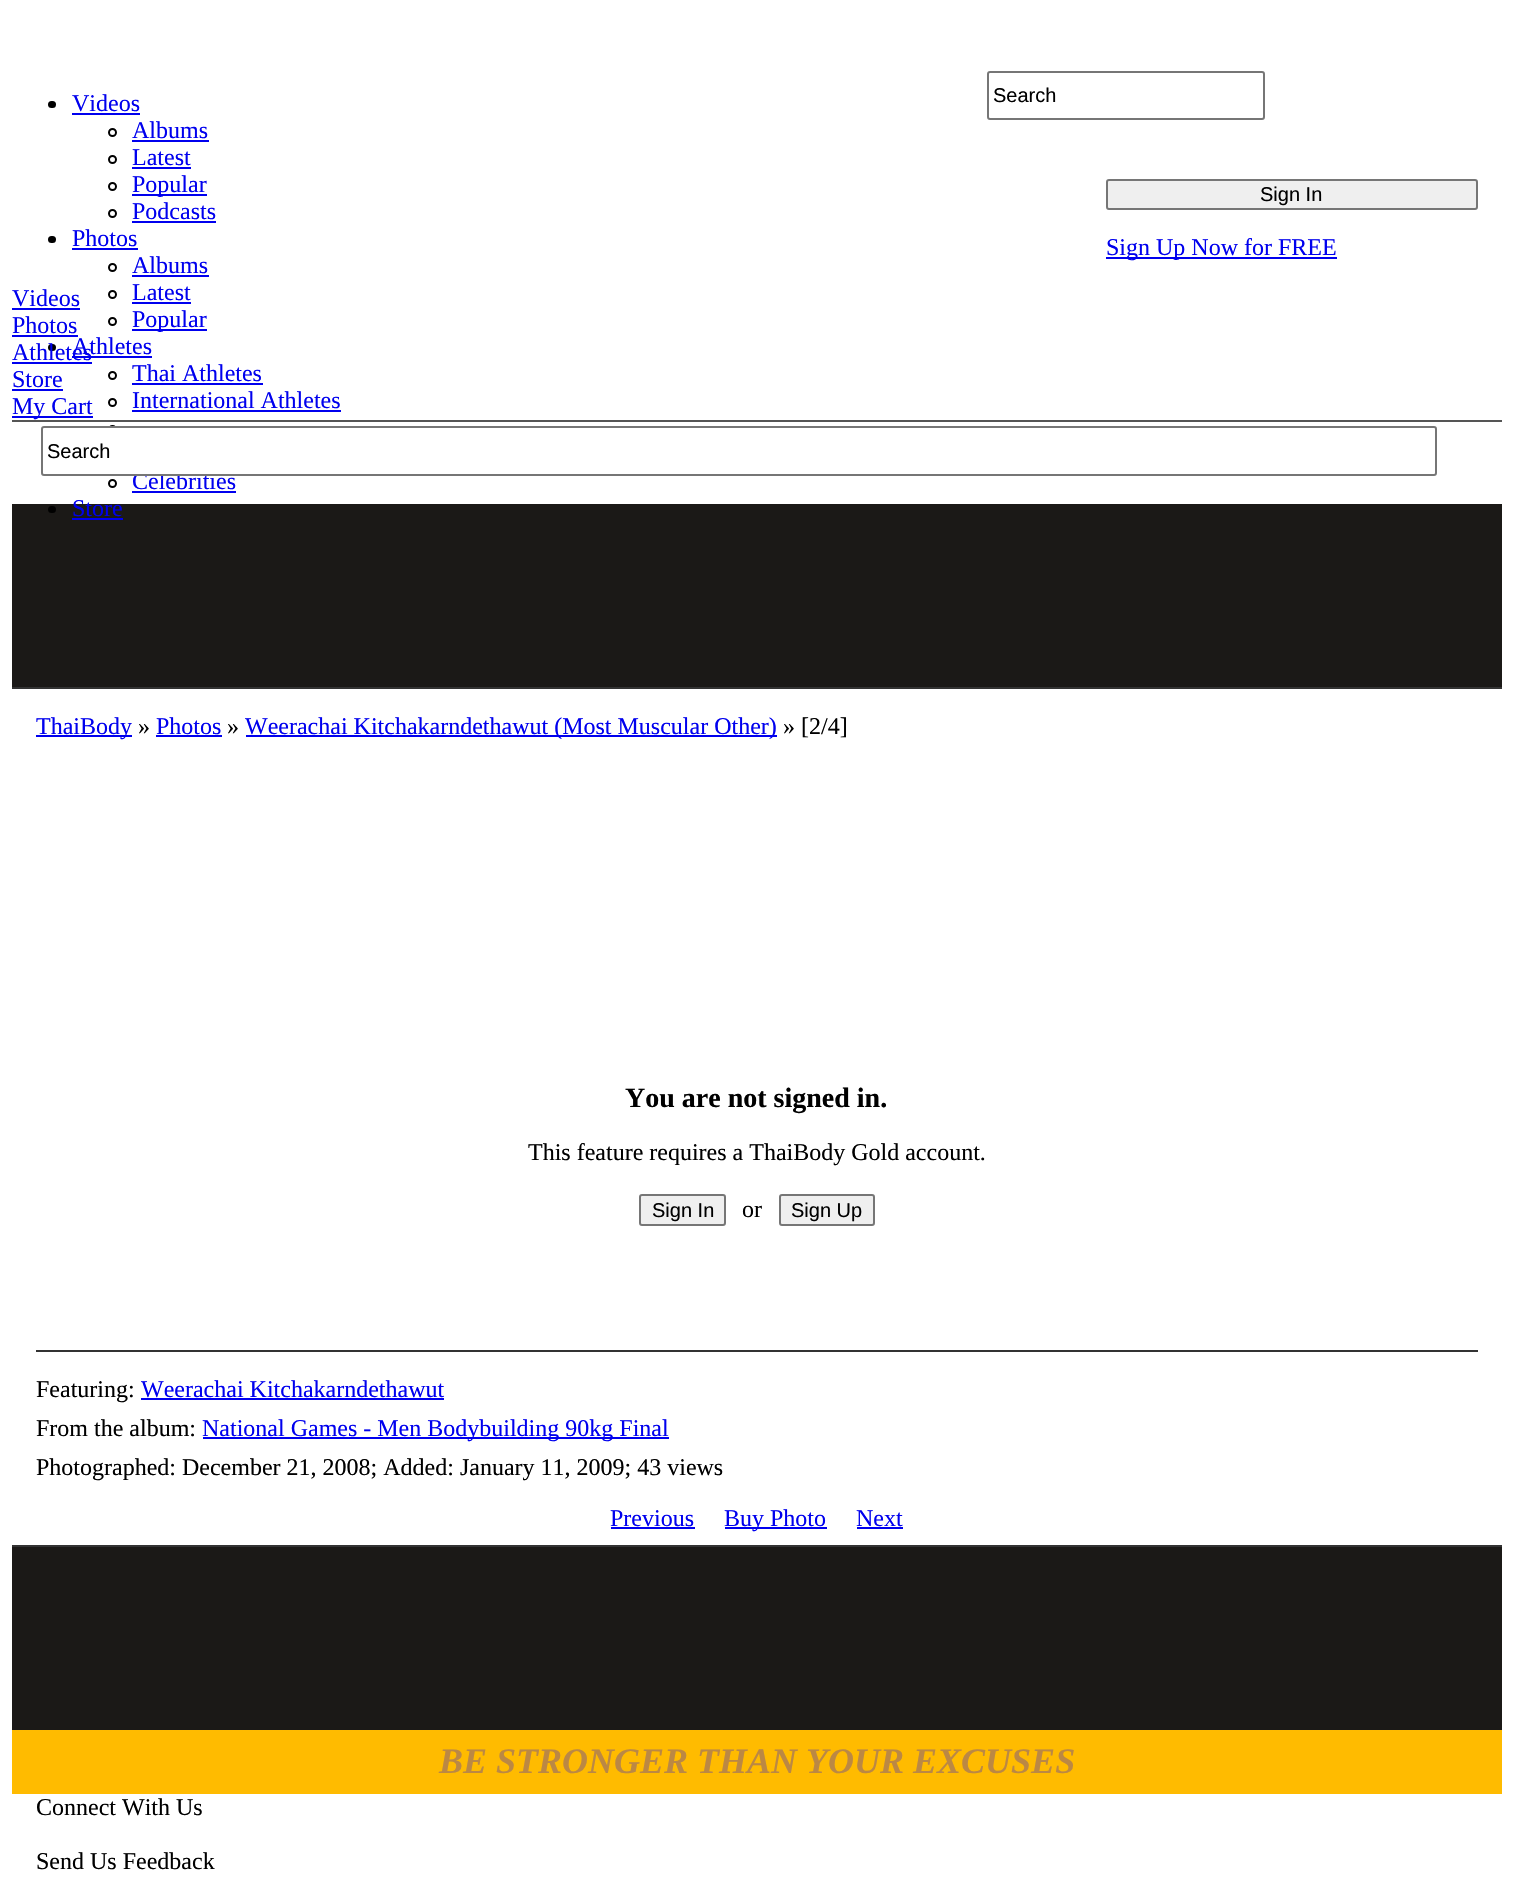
#include "include/core/SkBlurTypes.h"
#include "include/core/SkCanvas.h"
#include "include/core/SkData.h"
#include "include/core/SkFont.h"
#include "include/core/SkFontMgr.h"
#include "include/core/SkImage.h"
#include "include/core/SkMaskFilter.h"
#include "include/core/SkPaint.h"
#include "include/core/SkPathBuilder.h"
#include "include/core/SkTextBlob.h"
#include "include/effects/SkDashPathEffect.h"
#include "include/effects/SkGradientShader.h"
#include "include/utils/SkParsePath.h"

extern sk_sp<SkFontMgr> fontMgr;

void draw(SkCanvas* canvas) {
    SkPaint p;
    p.setAntiAlias(true);
    auto font = [&](const char* family, int weight, float size, bool italic = false) {
        SkFontStyle style(weight, SkFontStyle::kNormal_Width,
            italic ? SkFontStyle::kItalic_Slant : SkFontStyle::kUpright_Slant);
        SkFont result(fontMgr->matchFamilyStyle(family, style), size);
        result.setSubpixel(true);
        return result;
    };
    canvas->clear(0xFFFFFFFF);
    p.setColor(0xFF000000);
    canvas->drawRoundRect(SkRect::MakeLTRB(48, 101, 56, 108), 3.5f, 3.5f, p);
    auto font1 = font("Liberation Serif", 400, 24);
    p.setColor(0xFF0000EE);
    canvas->drawString("Videos", 72, 111, font1, p);
    canvas->drawRect(SkRect::MakeLTRB(72, 113, 140, 115), p);
    p.setStyle(SkPaint::kStroke_Style);
    p.setStrokeWidth(2);
    p.setColor(0xFF000000);
    canvas->drawCircle(112.5f, 132.5f, 3.5f, p);
    p.setStyle(SkPaint::kFill_Style);
    p.setColor(0xFF0000EE);
    canvas->drawString("Albums", 132, 138, font1, p);
    canvas->drawRect(SkRect::MakeLTRB(132, 140, 209, 142), p);
    p.setStyle(SkPaint::kStroke_Style);
    p.setColor(0xFF000000);
    canvas->drawCircle(112.5f, 159.5f, 3.5f, p);
    p.setStyle(SkPaint::kFill_Style);
    p.setColor(0xFF0000EE);
    canvas->drawString("Latest", 132, 165, font1, p);
    canvas->drawRect(SkRect::MakeLTRB(132, 167, 191, 169), p);
    p.setStyle(SkPaint::kStroke_Style);
    p.setColor(0xFF000000);
    canvas->drawCircle(112.5f, 186.5f, 3.5f, p);
    p.setStyle(SkPaint::kFill_Style);
    p.setColor(0xFF0000EE);
    canvas->drawRect(SkRect::MakeLTRB(132, 194, 207, 196), p);
    canvas->drawString("Popular", 132, 192, font1, p);
    p.setStyle(SkPaint::kStroke_Style);
    p.setColor(0xFF000000);
    canvas->drawCircle(112.5f, 213.5f, 3.5f, p);
    p.setStyle(SkPaint::kFill_Style);
    p.setColor(0xFF0000EE);
    canvas->drawString("Podcasts", 132, 219, font1, p);
    canvas->drawRect(SkRect::MakeLTRB(132, 221, 216, 223), p);
    p.setColor(0xFF000000);
    canvas->drawRoundRect(SkRect::MakeLTRB(48, 236, 56, 243), 3.5f, 3.5f, p);
    p.setColor(0xFF0000EE);
    canvas->drawString("Photos", 72, 246, font1, p);
    canvas->drawRect(SkRect::MakeLTRB(72, 248, 138, 250), p);
    p.setStyle(SkPaint::kStroke_Style);
    p.setColor(0xFF000000);
    canvas->drawCircle(112.5f, 267.5f, 3.5f, p);
    p.setStyle(SkPaint::kFill_Style);
    p.setColor(0xFF0000EE);
    canvas->drawString("Albums", 132, 273, font1, p);
    canvas->drawRect(SkRect::MakeLTRB(132, 275, 209, 277), p);
    p.setStyle(SkPaint::kStroke_Style);
    p.setColor(0xFF000000);
    canvas->drawCircle(112.5f, 294.5f, 3.5f, p);
    p.setStyle(SkPaint::kFill_Style);
    p.setColor(0xFF0000EE);
    canvas->drawString("Latest", 132, 300, font1, p);
    canvas->drawRect(SkRect::MakeLTRB(132, 302, 191, 304), p);
    p.setStyle(SkPaint::kStroke_Style);
    p.setColor(0xFF000000);
    canvas->drawCircle(112.5f, 321.5f, 3.5f, p);
    p.setStyle(SkPaint::kFill_Style);
    p.setColor(0xFF0000EE);
    canvas->drawRect(SkRect::MakeLTRB(132, 329, 207, 331), p);
    canvas->drawString("Popular", 132, 327, font1, p);
    p.setColor(0xFF000000);
    canvas->drawRoundRect(SkRect::MakeLTRB(48, 344, 56, 351), 3.5f, 3.5f, p);
    p.setColor(0xFF0000EE);
    canvas->drawString("Athletes", 72, 354, font1, p);
    canvas->drawRect(SkRect::MakeLTRB(72, 356, 152, 358), p);
    p.setStyle(SkPaint::kStroke_Style);
    p.setColor(0xFF000000);
    canvas->drawCircle(112.5f, 375.5f, 3.5f, p);
    p.setStyle(SkPaint::kFill_Style);
    p.setColor(0xFF0000EE);
    canvas->drawString("Thai Athletes", 132, 381, font1, p);
    canvas->drawRect(SkRect::MakeLTRB(132, 383, 263, 385), p);
    p.setStyle(SkPaint::kStroke_Style);
    p.setColor(0xFF000000);
    canvas->drawCircle(112.5f, 402.5f, 3.5f, p);
    p.setStyle(SkPaint::kFill_Style);
    p.setColor(0xFF0000EE);
    canvas->drawString("International Athletes", 132, 408, font1, p);
    canvas->drawRect(SkRect::MakeLTRB(132, 410, 341, 412), p);
    p.setStyle(SkPaint::kStroke_Style);
    p.setColor(0xFF000000);
    canvas->drawCircle(112.5f, 429.5f, 3.5f, p);
    canvas->drawCircle(112.5f, 483.5f, 3.5f, p);
    p.setStyle(SkPaint::kFill_Style);
    p.setColor(0xFF0000EE);
    canvas->drawString("Celebrities", 132, 489, font1, p);
    canvas->drawRect(SkRect::MakeLTRB(132, 491, 236, 493), p);
    p.setColor(0xFF1B1917);
    canvas->drawRect(SkRect::MakeLTRB(12, 504, 1502, 687), p);
    p.setColor(0xFF000000);
    canvas->drawRoundRect(SkRect::MakeLTRB(48, 506, 56, 513), 3.5f, 3.5f, p);
    p.setColor(0xFF0000EE);
    canvas->drawString("Store", 72, 516, font1, p);
    canvas->drawRect(SkRect::MakeLTRB(72, 518, 123, 520), p);
    p.setStyle(SkPaint::kStroke_Style);
    p.setColor(0xFF767676);
    canvas->drawRoundRect(SkRect::MakeLTRB(988, 72, 1264, 119), 2, 2, p);
    auto font2 = font("Liberation Sans", 400, 20);
    p.setStyle(SkPaint::kFill_Style);
    p.setColor(0xFF000000);
    canvas->drawString("Search", 993, 102, font2, p);
    p.setColor(0xFFEFEFEF);
    canvas->drawRoundRect(SkRect::MakeLTRB(1107, 180, 1477, 209), 2, 2, p);
    p.setStyle(SkPaint::kStroke_Style);
    p.setColor(0xFF767676);
    canvas->drawRoundRect(SkRect::MakeLTRB(1107, 180, 1477, 209), 2, 2, p);
    p.setStyle(SkPaint::kFill_Style);
    p.setColor(0xFF000000);
    canvas->drawString("Sign In", 1260, 201, font2, p);
    p.setColor(0xFF0000EE);
    canvas->drawRect(SkRect::MakeLTRB(1106, 257, 1337, 259), p);
    canvas->drawString("Sign Up Now for FREE", 1106, 255, font1, p);
    canvas->drawString("Videos", 12, 306, font1, p);
    canvas->drawRect(SkRect::MakeLTRB(12, 308, 80, 310), p);
    canvas->drawString("Photos", 12, 333, font1, p);
    canvas->drawRect(SkRect::MakeLTRB(12, 335, 78, 337), p);
    canvas->drawString("Athletes", 12, 360, font1, p);
    canvas->drawRect(SkRect::MakeLTRB(12, 362, 92, 364), p);
    canvas->drawString("Store", 12, 387, font1, p);
    canvas->drawRect(SkRect::MakeLTRB(12, 389, 63, 391), p);
    canvas->drawRect(SkRect::MakeLTRB(12, 416, 93, 418), p);
    canvas->drawString("My Cart", 12, 414, font1, p);
    p.setColor(0xFF555555);
    canvas->drawRect(SkRect::MakeLTRB(12, 420, 1502, 422), p);
    p.setColor(0xFFFFFFFF);
    canvas->drawRoundRect(SkRect::MakeLTRB(42, 427, 1436, 475), 2, 2, p);
    p.setStyle(SkPaint::kStroke_Style);
    p.setColor(0xFF767676);
    canvas->drawRoundRect(SkRect::MakeLTRB(42, 427, 1436, 475), 2, 2, p);
    p.setStyle(SkPaint::kFill_Style);
    p.setColor(0xFF000000);
    canvas->drawString("Search", 47, 458, font2, p);
    p.setColor(0xFF333333);
    canvas->drawRect(SkRect::MakeLTRB(12, 687, 1502, 689), p);
    p.setColor(0xFF0000EE);
    canvas->drawRect(SkRect::MakeLTRB(36, 735, 132, 737), p);
    canvas->drawString("ThaiBody", 36, 734, font1, p);
    p.setColor(0xFF000000);
    canvas->drawString("»", 138, 734, font1, p);
    p.setColor(0xFF0000EE);
    canvas->drawString("Photos", 156, 734, font1, p);
    canvas->drawRect(SkRect::MakeLTRB(156, 735, 222, 737), p);
    p.setColor(0xFF000000);
    canvas->drawString("»", 227, 734, font1, p);
    p.setColor(0xFF0000EE);
    canvas->drawRect(SkRect::MakeLTRB(246, 735, 777, 737), p);
    canvas->drawString("Weerachai Kitchakarndethawut (Most Muscular Other)", 245, 734, font1, p);
    p.setColor(0xFF000000);
    canvas->drawString("» [2/4]", 783, 734, font1, p);
    auto font3 = font("Liberation Serif", 700, 28);
    canvas->drawString("You are not signed in.", 625, 1107, font3, p);
    canvas->drawString("This feature requires a ThaiBody Gold account.", 528, 1160, font1, p);
    p.setColor(0xFFEFEFEF);
    canvas->drawRoundRect(SkRect::MakeLTRB(640, 1195, 725, 1225), 2, 2, p);
    p.setStyle(SkPaint::kStroke_Style);
    p.setColor(0xFF767676);
    canvas->drawRoundRect(SkRect::MakeLTRB(640, 1195, 725, 1225), 2, 2, p);
    p.setStyle(SkPaint::kFill_Style);
    p.setColor(0xFF000000);
    canvas->drawString("Sign In", 652, 1217, font2, p);
    canvas->drawString("or", 742, 1217, font1, p);
    p.setColor(0xFFEFEFEF);
    canvas->drawRoundRect(SkRect::MakeLTRB(780, 1195, 874, 1225), 2, 2, p);
    p.setStyle(SkPaint::kStroke_Style);
    p.setColor(0xFF767676);
    canvas->drawRoundRect(SkRect::MakeLTRB(780, 1195, 874, 1225), 2, 2, p);
    p.setStyle(SkPaint::kFill_Style);
    p.setColor(0xFF000000);
    canvas->drawString("Sign Up", 791, 1217, font2, p);
    p.setColor(0xFF333333);
    canvas->drawRect(SkRect::MakeLTRB(36, 1350, 1478, 1352), p);
    p.setColor(0xFF000000);
    canvas->drawString("Featuring:", 36, 1397, font1, p);
    p.setColor(0xFF0000EE);
    canvas->drawString("Weerachai Kitchakarndethawut", 141, 1397, font1, p);
    canvas->drawRect(SkRect::MakeLTRB(141, 1398, 444, 1400), p);
    p.setColor(0xFF000000);
    canvas->drawString("From the album:", 36, 1436, font1, p);
    p.setColor(0xFF0000EE);
    canvas->drawRect(SkRect::MakeLTRB(203, 1437, 669, 1439), p);
    canvas->drawString("National Games - Men Bodybuilding 90kg Final", 202, 1436, font1, p);
    p.setColor(0xFF000000);
    canvas->drawString("Photographed: December 21, 2008; Added: January 11, 2009; 43 views", 36, 1475, font1, p);
    p.setColor(0xFF0000EE);
    canvas->drawString("Previous", 610, 1526, font1, p);
    canvas->drawRect(SkRect::MakeLTRB(611, 1527, 695, 1529), p);
    canvas->drawRect(SkRect::MakeLTRB(725, 1527, 827, 1529), p);
    canvas->drawString("Buy Photo", 724, 1526, font1, p);
    canvas->drawString("Next", 856, 1526, font1, p);
    {
        const struct { float l, t, r, b; SkColor color; } items[] = {
            {857, 1527, 903, 1529, 0xFF0000EE},
            {12, 1547, 1502, 1730, 0xFF1B1917},
            {12, 1545, 1502, 1547, 0xFF333333},
            {12, 1730, 1502, 1794, 0xFFFFBB00},
        };
        for (auto [l, t, r, b, color] : items) {
            p.setColor(color);
            canvas->drawRect(SkRect::MakeLTRB(l, t, r, b), p);
        }
    }
    auto font4 = font("Liberation Serif", 700, 36, true);
    p.setColor(0xFFBB8844);
    canvas->drawString("BE STRONGER THAN YOUR EXCUSES", 439, 1773, font4, p);
    p.setColor(0xFF000000);
    canvas->drawString("Connect With Us", 36, 1815, font1, p);
    canvas->drawString("Send Us Feedback", 36, 1869, font1, p);
}
